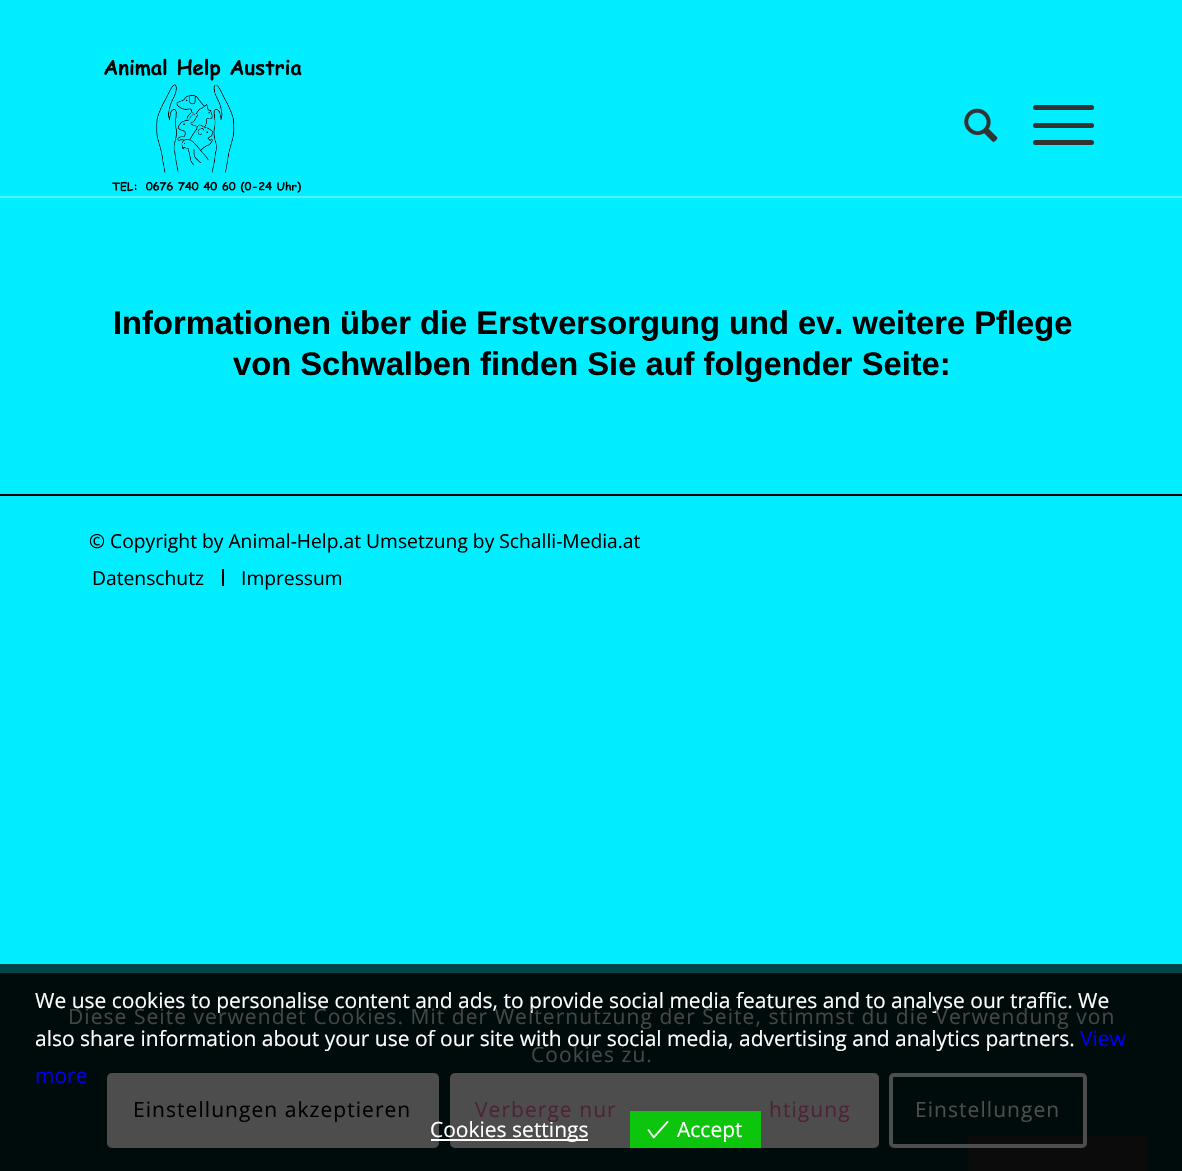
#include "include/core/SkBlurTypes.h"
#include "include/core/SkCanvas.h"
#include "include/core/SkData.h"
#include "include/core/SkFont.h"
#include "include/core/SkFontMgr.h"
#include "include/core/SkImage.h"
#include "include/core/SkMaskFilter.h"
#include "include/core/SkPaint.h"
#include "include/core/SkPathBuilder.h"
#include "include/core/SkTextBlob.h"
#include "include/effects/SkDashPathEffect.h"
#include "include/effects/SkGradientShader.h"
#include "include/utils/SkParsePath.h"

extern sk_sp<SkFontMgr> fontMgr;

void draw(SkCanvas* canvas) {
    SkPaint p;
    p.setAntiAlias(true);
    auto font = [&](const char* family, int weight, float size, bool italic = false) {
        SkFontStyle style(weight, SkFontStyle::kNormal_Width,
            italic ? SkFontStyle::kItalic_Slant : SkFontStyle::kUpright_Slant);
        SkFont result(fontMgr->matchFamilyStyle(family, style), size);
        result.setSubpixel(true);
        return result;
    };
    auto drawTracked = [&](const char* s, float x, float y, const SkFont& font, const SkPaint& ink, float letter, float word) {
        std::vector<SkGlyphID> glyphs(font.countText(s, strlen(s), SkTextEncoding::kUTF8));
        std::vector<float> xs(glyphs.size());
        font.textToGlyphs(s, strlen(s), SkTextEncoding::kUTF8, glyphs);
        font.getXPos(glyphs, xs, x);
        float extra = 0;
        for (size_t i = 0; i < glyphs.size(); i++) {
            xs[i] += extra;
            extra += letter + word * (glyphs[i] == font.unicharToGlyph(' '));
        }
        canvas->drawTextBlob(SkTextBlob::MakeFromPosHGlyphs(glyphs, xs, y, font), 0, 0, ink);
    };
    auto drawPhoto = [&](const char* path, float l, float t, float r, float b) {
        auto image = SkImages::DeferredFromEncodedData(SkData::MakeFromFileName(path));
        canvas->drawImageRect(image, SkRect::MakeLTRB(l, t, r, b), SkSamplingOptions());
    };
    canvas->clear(0xFF00EEFF);
    p.setColor(0xFF00474D);
    canvas->drawRect(SkRect::MakeLTRB(0, 964, 1182, 973), p);
    p.setColor(0xFF000B0B);
    canvas->drawRect(SkRect::MakeLTRB(0, 973, 1182, 1171), p);
    drawPhoto("media/1.png", 104, 58, 308, 193);
    drawPhoto("media/2.png", 964, 108, 998, 142);
    p.setColor(0xFF333333);
    canvas->drawRoundRect(SkRect::MakeLTRB(1033, 123, 1094, 128), 2.5f, 2.5f, p);
    canvas->drawRoundRect(SkRect::MakeLTRB(1033, 105, 1094, 110), 2.5f, 2.5f, p);
    canvas->drawRoundRect(SkRect::MakeLTRB(1033, 140, 1094, 145), 2.5f, 2.5f, p);
    p.setColor(0xFF4DF3FF);
    canvas->drawRect(SkRect::MakeLTRB(0, 196, 1182, 198), p);
    auto font1 = font("Liberation Sans", 700, 32.7f);
    p.setColor(0xFF000000);
    canvas->drawString("Informationen über die Erstversorgung und ev. weitere Pflege", 113, 334, font1, p);
    canvas->drawString("von Schwalben finden Sie auf folgender Seite:", 233, 375, font1, p);
    canvas->drawRect(SkRect::MakeLTRB(0, 494, 1182, 496), p);
    auto font2 = font("Open Sans", 400, 19.25f);
    canvas->drawString("© Copyright by Animal-Help.at Umsetzung by Schalli-Media.at", 89, 548, font2, p);
    canvas->drawString("Datenschutz", 92, 585, font2, p);
    canvas->drawRect(SkRect::MakeLTRB(222, 569, 224, 586), p);
    canvas->drawString("Impressum", 241, 585, font2, p);
    auto font3 = font("Open Sans", 400, 21);
    p.setColor(0xFFFFFFFF);
    canvas->drawString("We use cookies to personalise content and ads, to provide social media features and to analyse our traffic. We", 35, 1008, font3, p);
    canvas->drawString("also share information about your use of our site with our social media, advertising and analytics partners.", 35, 1046, font3, p);
    p.setColor(0xFF0000EE);
    canvas->drawString("View", 1080, 1046, font3, p);
    canvas->drawString("more", 35, 1083, font3, p);
    p.setColor(0xFF4D4D4D);
    canvas->drawRoundRect(SkRect::MakeLTRB(107, 1073, 439, 1148), 5, 5, p);
    canvas->drawRoundRect(SkRect::MakeLTRB(452, 1075, 877, 1146), 3, 3, p);
    p.setStyle(SkPaint::kStroke_Style);
    p.setStrokeWidth(4);
    canvas->drawRoundRect(SkRect::MakeLTRB(452, 1075, 877, 1146), 3, 3, p);
    p.setStyle(SkPaint::kFill_Style);
    p.setColor(0xFFFFFFFF);
    canvas->drawRect(SkRect::MakeLTRB(431, 1139, 588, 1141), p);
    canvas->drawString("Cookies settings", 430, 1137, font3, p);
    p.setColor(0xFF0EC50E);
    canvas->drawRect(SkRect::MakeLTRB(630, 1111, 761, 1148), p);
    drawPhoto("media/3.png", 647, 1120, 669, 1139);
    p.setColor(0xFFFFFFFF);
    canvas->drawString("Accept", 677, 1137, font3, p);
    p.setColor(0xFF454646);
    drawTracked("Diese Seite verwendet Cookies. Mit der Weiternutzung der Seite, stimmst du die Verwendung von", 68, 1024, font3, p, 1.05f, 0);
    drawTracked("Cookies zu.", 531, 1062, font3, p, 1.05f, 0);
    p.setColor(0xFF000000);
    drawTracked("Einstellungen akzeptieren", 133, 1117, font3, p, 1.05f, 0);
    p.setColor(0xFF4D2336);
    drawTracked("Verberge nur", 475, 1117, font3, p, 1.05f, 0);
    drawTracked("htigung", 769, 1117, font3, p, 1.05f, 0);
    p.setColor(0xFF0B0B0B);
    canvas->drawRect(SkRect::MakeLTRB(968, 1136, 1148, 1171), p);
    p.setStyle(SkPaint::kStroke_Style);
    p.setColor(0xFF4D4D4D);
    canvas->drawRoundRect(SkRect::MakeLTRB(891, 1075, 1085, 1146), 3, 3, p);
    p.setStyle(SkPaint::kFill_Style);
    drawTracked("Einstellungen", 915, 1117, font3, p, 1.05f, 0);
}
